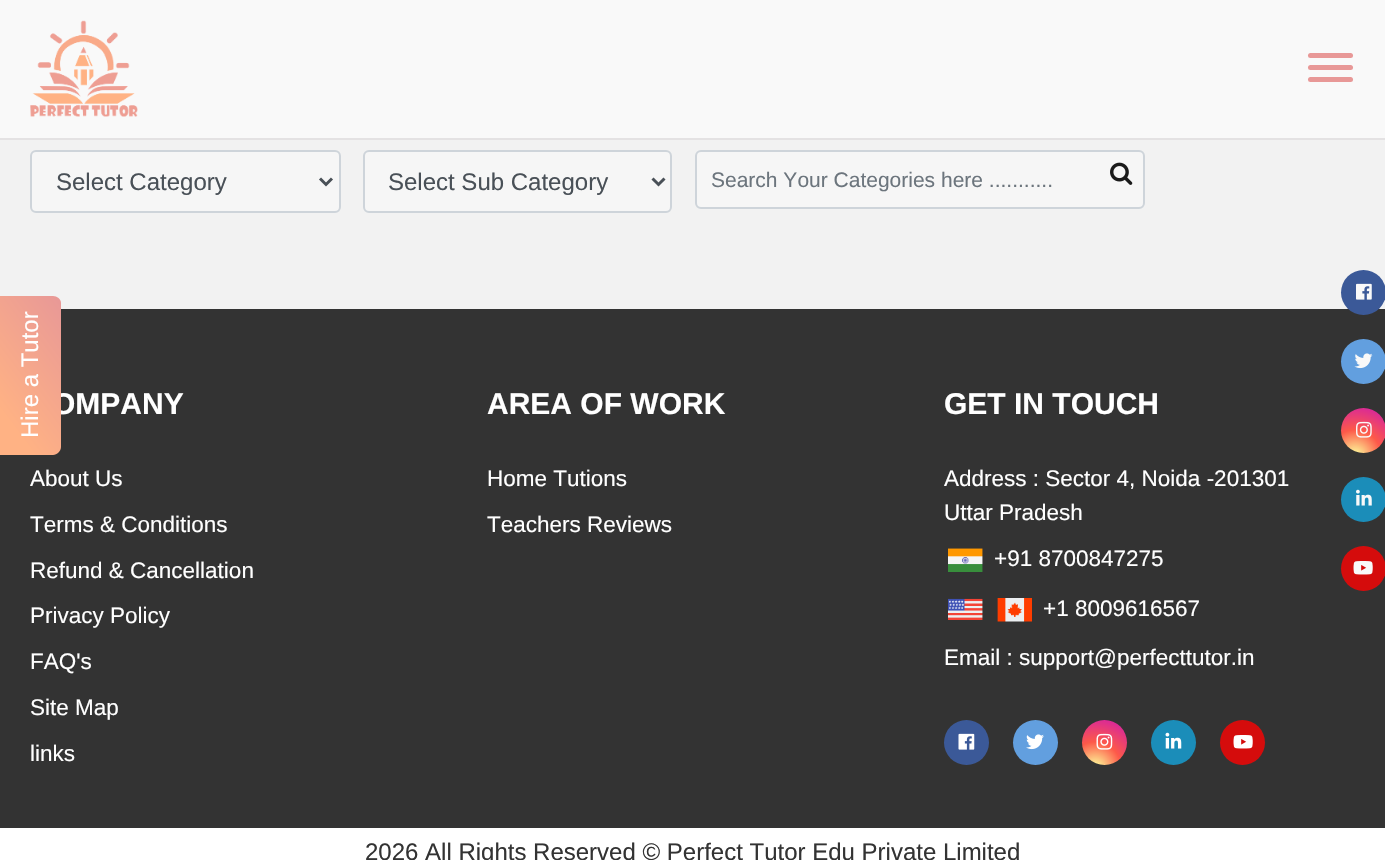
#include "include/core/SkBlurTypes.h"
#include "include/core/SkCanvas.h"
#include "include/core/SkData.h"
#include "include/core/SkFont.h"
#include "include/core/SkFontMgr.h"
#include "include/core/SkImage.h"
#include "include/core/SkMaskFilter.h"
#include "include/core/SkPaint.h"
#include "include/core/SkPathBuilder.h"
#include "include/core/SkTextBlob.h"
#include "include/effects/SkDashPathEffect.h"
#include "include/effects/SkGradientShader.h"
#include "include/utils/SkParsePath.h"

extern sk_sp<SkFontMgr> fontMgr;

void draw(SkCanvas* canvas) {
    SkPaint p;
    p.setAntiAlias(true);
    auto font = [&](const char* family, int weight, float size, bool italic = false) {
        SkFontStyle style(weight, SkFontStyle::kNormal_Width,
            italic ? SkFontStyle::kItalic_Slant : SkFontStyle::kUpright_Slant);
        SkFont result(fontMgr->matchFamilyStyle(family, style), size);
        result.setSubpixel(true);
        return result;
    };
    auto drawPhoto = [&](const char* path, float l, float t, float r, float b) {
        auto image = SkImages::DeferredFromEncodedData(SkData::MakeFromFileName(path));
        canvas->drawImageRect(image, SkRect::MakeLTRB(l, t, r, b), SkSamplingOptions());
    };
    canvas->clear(0xFFF2F2F2);
    p.setColor(0xFFE4E2E3);
    canvas->drawRect(SkRect::MakeLTRB(0, 138, 1385, 140), p);
    p.setColor(0xFFF9F9F9);
    canvas->drawRect(SkRect::MakeLTRB(0, 0, 1385, 138), p);
    drawPhoto("media/1.png", 30, 20, 138, 117);
    p.setColor(0xFFE89897);
    canvas->drawRoundRect(SkRect::MakeLTRB(1308, 53, 1353, 58), 2.5f, 2.5f, p);
    canvas->drawRoundRect(SkRect::MakeLTRB(1308, 65, 1353, 70), 2.5f, 2.5f, p);
    canvas->drawRoundRect(SkRect::MakeLTRB(1308, 77, 1353, 82), 2.5f, 2.5f, p);
    p.setColor(0xFFF6F6F6);
    canvas->drawRoundRect(SkRect::MakeLTRB(31, 151, 340, 212), 5, 5, p);
    p.setStyle(SkPaint::kStroke_Style);
    p.setStrokeWidth(2);
    p.setColor(0xFFCED4DA);
    canvas->drawRoundRect(SkRect::MakeLTRB(31, 151, 340, 212), 5, 5, p);
    p.setStrokeWidth(3);
    p.setColor(0xFF495057);
    canvas->drawPath(SkPathBuilder().moveTo(320, 178.5f).lineTo(326, 184.5f).lineTo(332, 178.5f).detach(), p);
    auto font1 = font("Liberation Sans", 400, 24);
    p.setStyle(SkPaint::kFill_Style);
    canvas->drawString("Select Category", 56, 190, font1, p);
    p.setColor(0xFFF6F6F6);
    canvas->drawRoundRect(SkRect::MakeLTRB(364, 151, 671, 212), 5, 5, p);
    p.setStyle(SkPaint::kStroke_Style);
    p.setStrokeWidth(2);
    p.setColor(0xFFCED4DA);
    canvas->drawRoundRect(SkRect::MakeLTRB(364, 151, 671, 212), 5, 5, p);
    p.setStrokeWidth(3);
    p.setColor(0xFF495057);
    canvas->drawPath(SkPathBuilder().moveTo(652.5f, 178.5f).lineTo(658.5f, 184.5f).lineTo(664.5f, 178.5f).detach(), p);
    p.setStyle(SkPaint::kFill_Style);
    canvas->drawString("Select Sub Category", 388, 190, font1, p);
    p.setColor(0xFFF6F6F6);
    canvas->drawRoundRect(SkRect::MakeLTRB(696, 151, 1144, 208), 5, 5, p);
    p.setStyle(SkPaint::kStroke_Style);
    p.setStrokeWidth(2);
    p.setColor(0xFFCED4DA);
    canvas->drawRoundRect(SkRect::MakeLTRB(696, 151, 1144, 208), 5, 5, p);
    auto font2 = font("Liberation Sans", 400, 21);
    p.setStyle(SkPaint::kFill_Style);
    p.setColor(0xFF6C757D);
    canvas->drawString("Search Your Categories here ...........", 711, 187, font2, p);
    drawPhoto("media/2.png", 1110, 162, 1133, 185);
    p.setColor(0xFF333333);
    canvas->drawRect(SkRect::MakeLTRB(0, 309, 1385, 828), p);
    auto font3 = font("Liberation Sans", 700, 30);
    p.setColor(0xFFFFFFFF);
    canvas->drawString("OMPANY", 52, 414, font3, p);
    {
        const SkColor colors[] = {0xFFFFB284, 0xFFE89897};
        const float stops[] = {0.19f, 1};
        const SkPoint ends[] = {{-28, 419}, {88, 332}};
        p.setShader(SkGradientShader::MakeLinear(ends, colors, stops, 2, SkTileMode::kClamp));
        p.setAlpha(255);
    }
    canvas->drawPath(SkPathBuilder().moveTo(-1, 455).lineTo(-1, 296).lineTo(53, 296).cubicTo(57, 296, 61, 299, 61, 303).lineTo(61, 447).cubicTo(61, 451, 57, 455, 53, 455).close().detach(), p);
    p.setShader(nullptr);
    p.setColor(0xFFFFFFFF);
    canvas->save();
    canvas->rotate(-90, 38, 438);
    canvas->drawString("Hire a Tutor", 38, 438, font1, p);
    canvas->restore();
    p.setColor(0xFF3B5998);
    canvas->drawCircle(1363.5f, 292.5f, 22.5f, p);
    drawPhoto("media/3.png", 1356, 283, 1372, 300);
    p.setColor(0xFF629FDF);
    canvas->drawCircle(1363.5f, 361.5f, 22.5f, p);
    drawPhoto("media/4.png", 1354, 353, 1373, 369);
    {
        const SkColor colors[] = {0xFFFDF497, 0xFFFDF497, 0xFFFD5949, 0xFFD6249F, 0xFF285AEB};
        const float stops[] = {0, 0.05f, 0.45f, 0.9f, 0.9f};
        p.setShader(SkGradientShader::MakeRadial({1355, 456}, 58, colors, stops, 5, SkTileMode::kClamp));
        p.setAlpha(255);
    }
    canvas->drawCircle(1363.5f, 430.5f, 22.5f, p);
    drawPhoto("media/5.png", 1356, 421, 1372, 438);
    p.setShader(nullptr);
    p.setColor(0xFF1B8DB9);
    canvas->drawCircle(1363.5f, 499.5f, 22.5f, p);
    drawPhoto("media/6.png", 1356, 489, 1372, 506);
    p.setColor(0xFFD50C0C);
    canvas->drawCircle(1363.5f, 568.5f, 22.5f, p);
    drawPhoto("media/7.png", 1353, 561, 1373, 575);
    auto font4 = font("Liberation Sans", 400, 22.5f);
    p.setColor(0xFFFFFFFF);
    {
        const struct { const char* s; float x, y; } items[] = {
            {"About Us", 30, 486},
            {"Terms & Conditions", 30, 532},
            {"Refund & Cancellation", 30, 578},
            {"Privacy Policy", 30, 623},
            {"FAQ's", 30, 669},
            {"Site Map", 30, 715},
            {"links", 30, 761},
        };
        for (auto [s, x, y] : items) {
            canvas->drawString(s, x, y, font4, p);
        }
    }
    canvas->drawString("AREA OF WORK", 487, 414, font3, p);
    canvas->drawString("Home Tutions", 487, 486, font4, p);
    canvas->drawString("Teachers Reviews", 487, 532, font4, p);
    canvas->drawString("GET IN TOUCH", 944, 414, font3, p);
    canvas->drawString("Address : Sector 4, Noida -201301", 944, 486, font4, p);
    canvas->drawString("Uttar Pradesh", 944, 520, font4, p);
    drawPhoto("media/8.png", 948, 548, 983, 572);
    canvas->drawString("+91 8700847275", 994, 566, font4, p);
    drawPhoto("media/9.png", 948, 598, 983, 620);
    drawPhoto("media/10.png", 997, 598, 1032, 622);
    canvas->drawString("+1 8009616567", 1043, 616, font4, p);
    canvas->drawString("Email : support@perfecttutor.in", 944, 665, font4, p);
    p.setColor(0xFF3B5998);
    canvas->drawCircle(966.5f, 742.5f, 22.5f, p);
    drawPhoto("media/11.png", 958, 733, 975, 750);
    p.setColor(0xFF629FDF);
    canvas->drawCircle(1035.5f, 742.5f, 22.5f, p);
    drawPhoto("media/12.png", 1026, 734, 1044, 750);
    {
        const SkColor colors[] = {0xFFFDF497, 0xFFFDF497, 0xFFFD5949, 0xFFD6249F, 0xFF285AEB};
        const float stops[] = {0, 0.05f, 0.45f, 0.9f, 0.9f};
        p.setShader(SkGradientShader::MakeRadial({1095, 768}, 58, colors, stops, 5, SkTileMode::kClamp));
        p.setAlpha(255);
    }
    canvas->drawCircle(1104.5f, 742.5f, 22.5f, p);
    drawPhoto("media/13.png", 1096, 733, 1113, 750);
    p.setShader(nullptr);
    p.setColor(0xFF1B8DB9);
    canvas->drawCircle(1173.5f, 742.5f, 22.5f, p);
    drawPhoto("media/14.png", 1165, 732, 1182, 749);
    p.setColor(0xFFD50C0C);
    canvas->drawCircle(1242.5f, 742.5f, 22.5f, p);
    drawPhoto("media/15.png", 1233, 735, 1253, 749);
    p.setColor(0xFFFFFFFF);
    canvas->drawRect(SkRect::MakeLTRB(0, 828, 1385, 860), p);
    p.setColor(0xFF333333);
    canvas->drawString("2026 All Rights Reserved © Perfect Tutor Edu Private Limited", 365, 860, font1, p);
}
